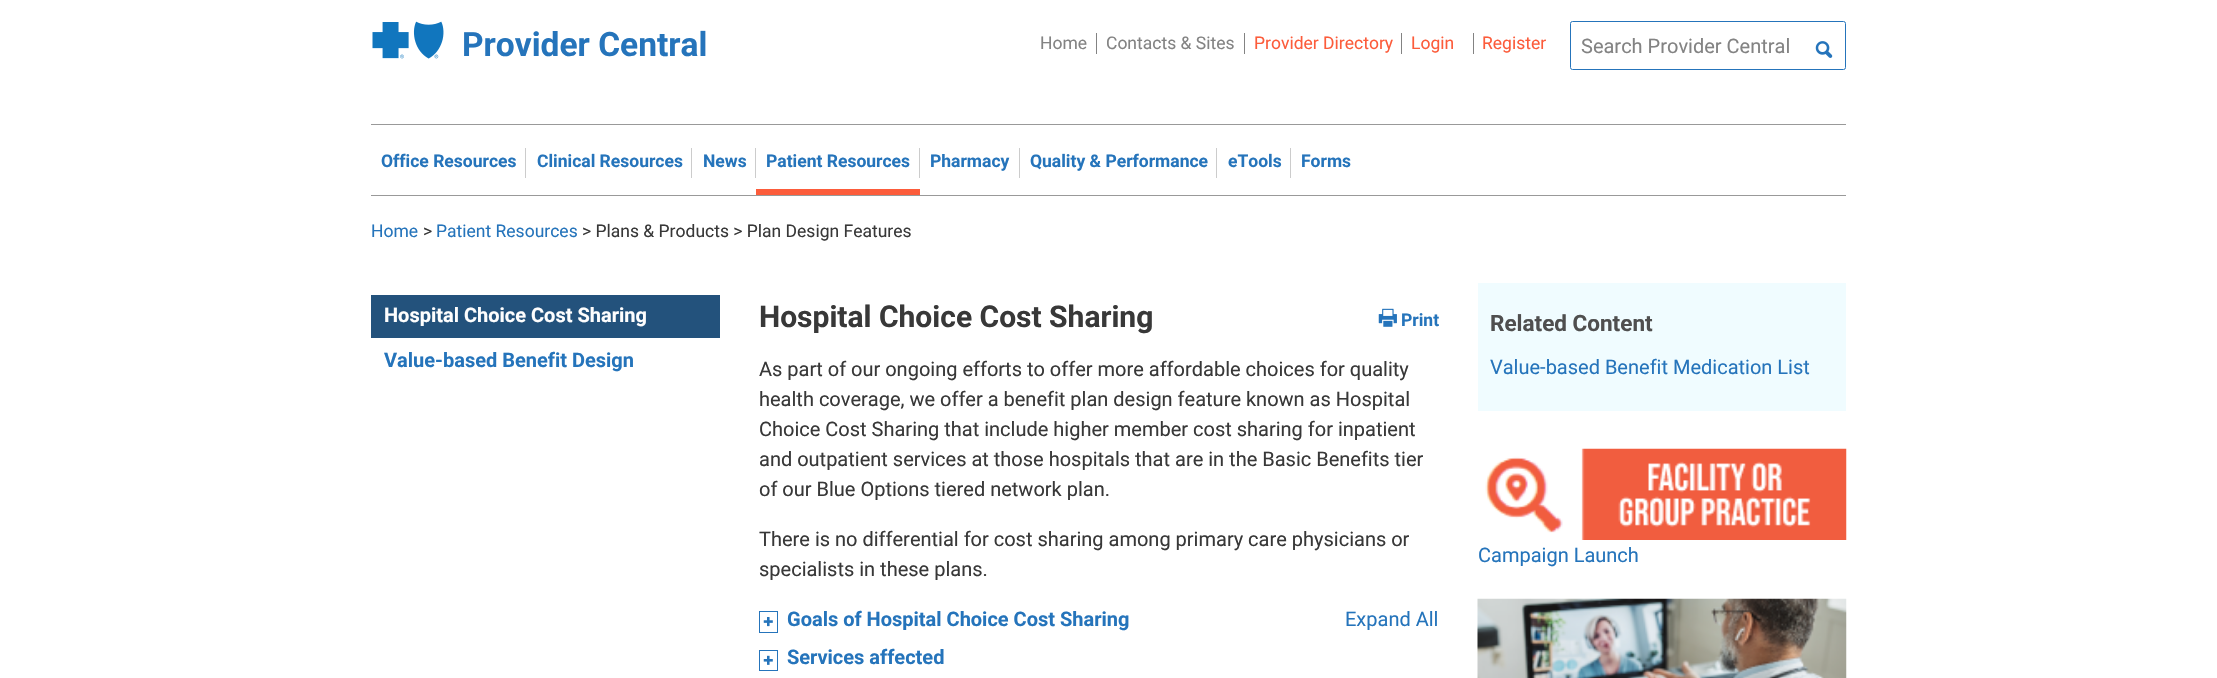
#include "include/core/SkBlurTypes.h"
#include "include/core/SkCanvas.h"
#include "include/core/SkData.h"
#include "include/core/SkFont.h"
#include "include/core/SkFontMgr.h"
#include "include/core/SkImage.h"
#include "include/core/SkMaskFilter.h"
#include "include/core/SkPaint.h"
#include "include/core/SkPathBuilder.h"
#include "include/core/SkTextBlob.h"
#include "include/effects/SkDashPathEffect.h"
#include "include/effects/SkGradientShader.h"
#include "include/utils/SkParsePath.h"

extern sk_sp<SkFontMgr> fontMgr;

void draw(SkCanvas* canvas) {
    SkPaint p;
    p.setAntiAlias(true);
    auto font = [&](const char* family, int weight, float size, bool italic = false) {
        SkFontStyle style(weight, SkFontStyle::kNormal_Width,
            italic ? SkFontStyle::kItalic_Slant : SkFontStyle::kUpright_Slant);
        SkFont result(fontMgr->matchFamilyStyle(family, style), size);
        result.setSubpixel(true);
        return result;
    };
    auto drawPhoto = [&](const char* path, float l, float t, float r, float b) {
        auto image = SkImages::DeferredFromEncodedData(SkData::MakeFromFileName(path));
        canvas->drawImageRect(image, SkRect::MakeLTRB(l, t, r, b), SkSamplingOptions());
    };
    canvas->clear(0xFFFFFFFF);
    drawPhoto("media/1.png", 372, 21, 444, 59);
    auto font1 = font("Roboto", 700, 33.5f);
    p.setColor(0xFF2574BB);
    canvas->drawString("Provider Central", 462, 56, font1, p);
    auto font2 = font("Roboto", 400, 17.5f);
    p.setColor(0xFF838383);
    canvas->drawString("Home", 1040, 49, font2, p);
    canvas->drawRect(SkRect::MakeLTRB(1096, 33, 1097, 54), p);
    canvas->drawString("Contacts & Sites", 1106, 49, font2, p);
    canvas->drawRect(SkRect::MakeLTRB(1244, 33, 1245, 54), p);
    p.setColor(0xFFFC5C3B);
    canvas->drawString("Provider Directory", 1254, 49, font2, p);
    p.setColor(0xFF838383);
    canvas->drawRect(SkRect::MakeLTRB(1401, 33, 1402, 54), p);
    p.setColor(0xFFFC5C3B);
    canvas->drawString("Login", 1411, 49, font2, p);
    p.setColor(0xFF838383);
    canvas->drawRect(SkRect::MakeLTRB(1473, 33, 1474, 54), p);
    p.setColor(0xFFFC5C3B);
    canvas->drawString("Register", 1482, 49, font2, p);
    p.setStyle(SkPaint::kStroke_Style);
    p.setStrokeWidth(1);
    p.setColor(0xFF2574BB);
    canvas->drawRoundRect(SkRect::MakeLTRB(1570.5f, 21.5f, 1845.5f, 69.5f), 2, 2, p);
    auto font3 = font("Roboto", 400, 20);
    p.setStyle(SkPaint::kFill_Style);
    p.setColor(0xFF838383);
    canvas->drawString("Search Provider Central", 1581, 53, font3, p);
    drawPhoto("media/2.png", 1815, 41, 1833, 58);
    p.setColor(0xFF999999);
    canvas->drawRect(SkRect::MakeLTRB(371, 124, 1846, 125), p);
    canvas->drawRect(SkRect::MakeLTRB(371, 195, 1846, 196), p);
    auto font4 = font("Roboto", 700, 17.5f);
    p.setColor(0xFF2574BB);
    canvas->drawString("Office Resources", 381, 167, font4, p);
    p.setColor(0xFFCCCCCC);
    canvas->drawRect(SkRect::MakeLTRB(525, 148, 526, 178), p);
    p.setColor(0xFF2574BB);
    canvas->drawString("Clinical Resources", 537, 167, font4, p);
    p.setColor(0xFFCCCCCC);
    canvas->drawRect(SkRect::MakeLTRB(691, 148, 692, 178), p);
    p.setColor(0xFF2574BB);
    canvas->drawString("News", 703, 167, font4, p);
    p.setColor(0xFFCCCCCC);
    canvas->drawRect(SkRect::MakeLTRB(755, 148, 756, 178), p);
    p.setColor(0xFFFC5C3B);
    canvas->drawRect(SkRect::MakeLTRB(756, 189, 920, 195), p);
    p.setColor(0xFF2574BB);
    canvas->drawString("Patient Resources", 766, 167, font4, p);
    p.setColor(0xFFCCCCCC);
    canvas->drawRect(SkRect::MakeLTRB(919, 148, 920, 178), p);
    p.setColor(0xFF2574BB);
    canvas->drawString("Pharmacy", 930, 167, font4, p);
    p.setColor(0xFFCCCCCC);
    canvas->drawRect(SkRect::MakeLTRB(1019, 148, 1020, 178), p);
    p.setColor(0xFF2574BB);
    canvas->drawString("Quality & Performance", 1030, 167, font4, p);
    p.setColor(0xFFCCCCCC);
    canvas->drawRect(SkRect::MakeLTRB(1216, 148, 1217, 178), p);
    p.setColor(0xFF2574BB);
    canvas->drawString("eTools", 1228, 167, font4, p);
    p.setColor(0xFFCCCCCC);
    canvas->drawRect(SkRect::MakeLTRB(1290, 148, 1291, 178), p);
    p.setColor(0xFF2574BB);
    canvas->drawString("Forms", 1301, 167, font4, p);
    canvas->drawString("Home", 371, 237, font2, p);
    p.setColor(0xFF383838);
    canvas->drawString(">", 423, 237, font2, p);
    p.setColor(0xFF2574BB);
    canvas->drawString("Patient Resources", 436, 237, font2, p);
    p.setColor(0xFF383838);
    canvas->drawString("> Plans & Products > Plan Design Features", 582, 237, font2, p);
    p.setColor(0xFF23527C);
    canvas->drawRect(SkRect::MakeLTRB(371, 295, 720, 338), p);
    auto font5 = font("Roboto", 700, 20);
    p.setColor(0xFFFEFEFE);
    canvas->drawString("Hospital Choice Cost Sharing", 384, 322, font5, p);
    p.setColor(0xFF2574BB);
    canvas->drawString("Value-based Benefit Design", 384, 367, font5, p);
    auto font6 = font("Roboto", 700, 30);
    p.setColor(0xFF383838);
    canvas->drawString("Hospital Choice Cost Sharing", 759, 327, font6, p);
    drawPhoto("media/3.png", 1378, 308, 1397, 327);
    p.setColor(0xFF2574BB);
    canvas->drawString("Print", 1401, 326, font4, p);
    p.setColor(0xFF383838);
    {
        const struct { const char* s; float x, y; } items[] = {
            {"As part of our ongoing efforts to offer more affordable choices for quality", 759, 376},
            {"health coverage, we offer a benefit plan design feature known as Hospital", 759, 406},
            {"Choice Cost Sharing that include higher member cost sharing for inpatient", 759, 436},
            {"and outpatient services at those hospitals that are in the Basic Benefits tier", 759, 466},
            {"of our Blue Options tiered network plan.", 759, 496},
            {"There is no differential for cost sharing among primary care physicians or", 759, 546},
            {"specialists in these plans.", 759, 576},
        };
        for (auto [s, x, y] : items) {
            canvas->drawString(s, x, y, font3, p);
        }
    }
    p.setStyle(SkPaint::kStroke_Style);
    p.setColor(0xFF2574BB);
    canvas->drawRect(SkRect::MakeLTRB(759.5f, 611.5f, 777.5f, 632.5f), p);
    p.setStyle(SkPaint::kFill_Style);
    canvas->drawString("Goals of Hospital Choice Cost Sharing", 787, 626, font5, p);
    drawPhoto("media/4.png", 763, 617, 773, 627);
    canvas->drawString("Expand All", 1345, 626, font3, p);
    p.setStyle(SkPaint::kStroke_Style);
    canvas->drawRect(SkRect::MakeLTRB(759.5f, 650.5f, 777.5f, 670.5f), p);
    p.setStyle(SkPaint::kFill_Style);
    canvas->drawString("Services affected", 787, 664, font5, p);
    drawPhoto("media/5.png", 763, 655, 773, 665);
    p.setColor(0xFFF0FCFF);
    canvas->drawRect(SkRect::MakeLTRB(1478, 283, 1846, 411), p);
    auto font7 = font("Roboto", 700, 22.5f);
    p.setColor(0xFF4F4F4F);
    canvas->drawString("Related Content", 1490, 331, font7, p);
    p.setColor(0xFF2574BB);
    canvas->drawString("Value-based Benefit Medication List", 1490, 374, font3, p);
    drawPhoto("media/6.png", 1485, 448, 1847, 540);
    canvas->drawString("Campaign Launch", 1478, 562, font3, p);
    drawPhoto("media/7.png", 1477, 598, 1847, 678);
}
